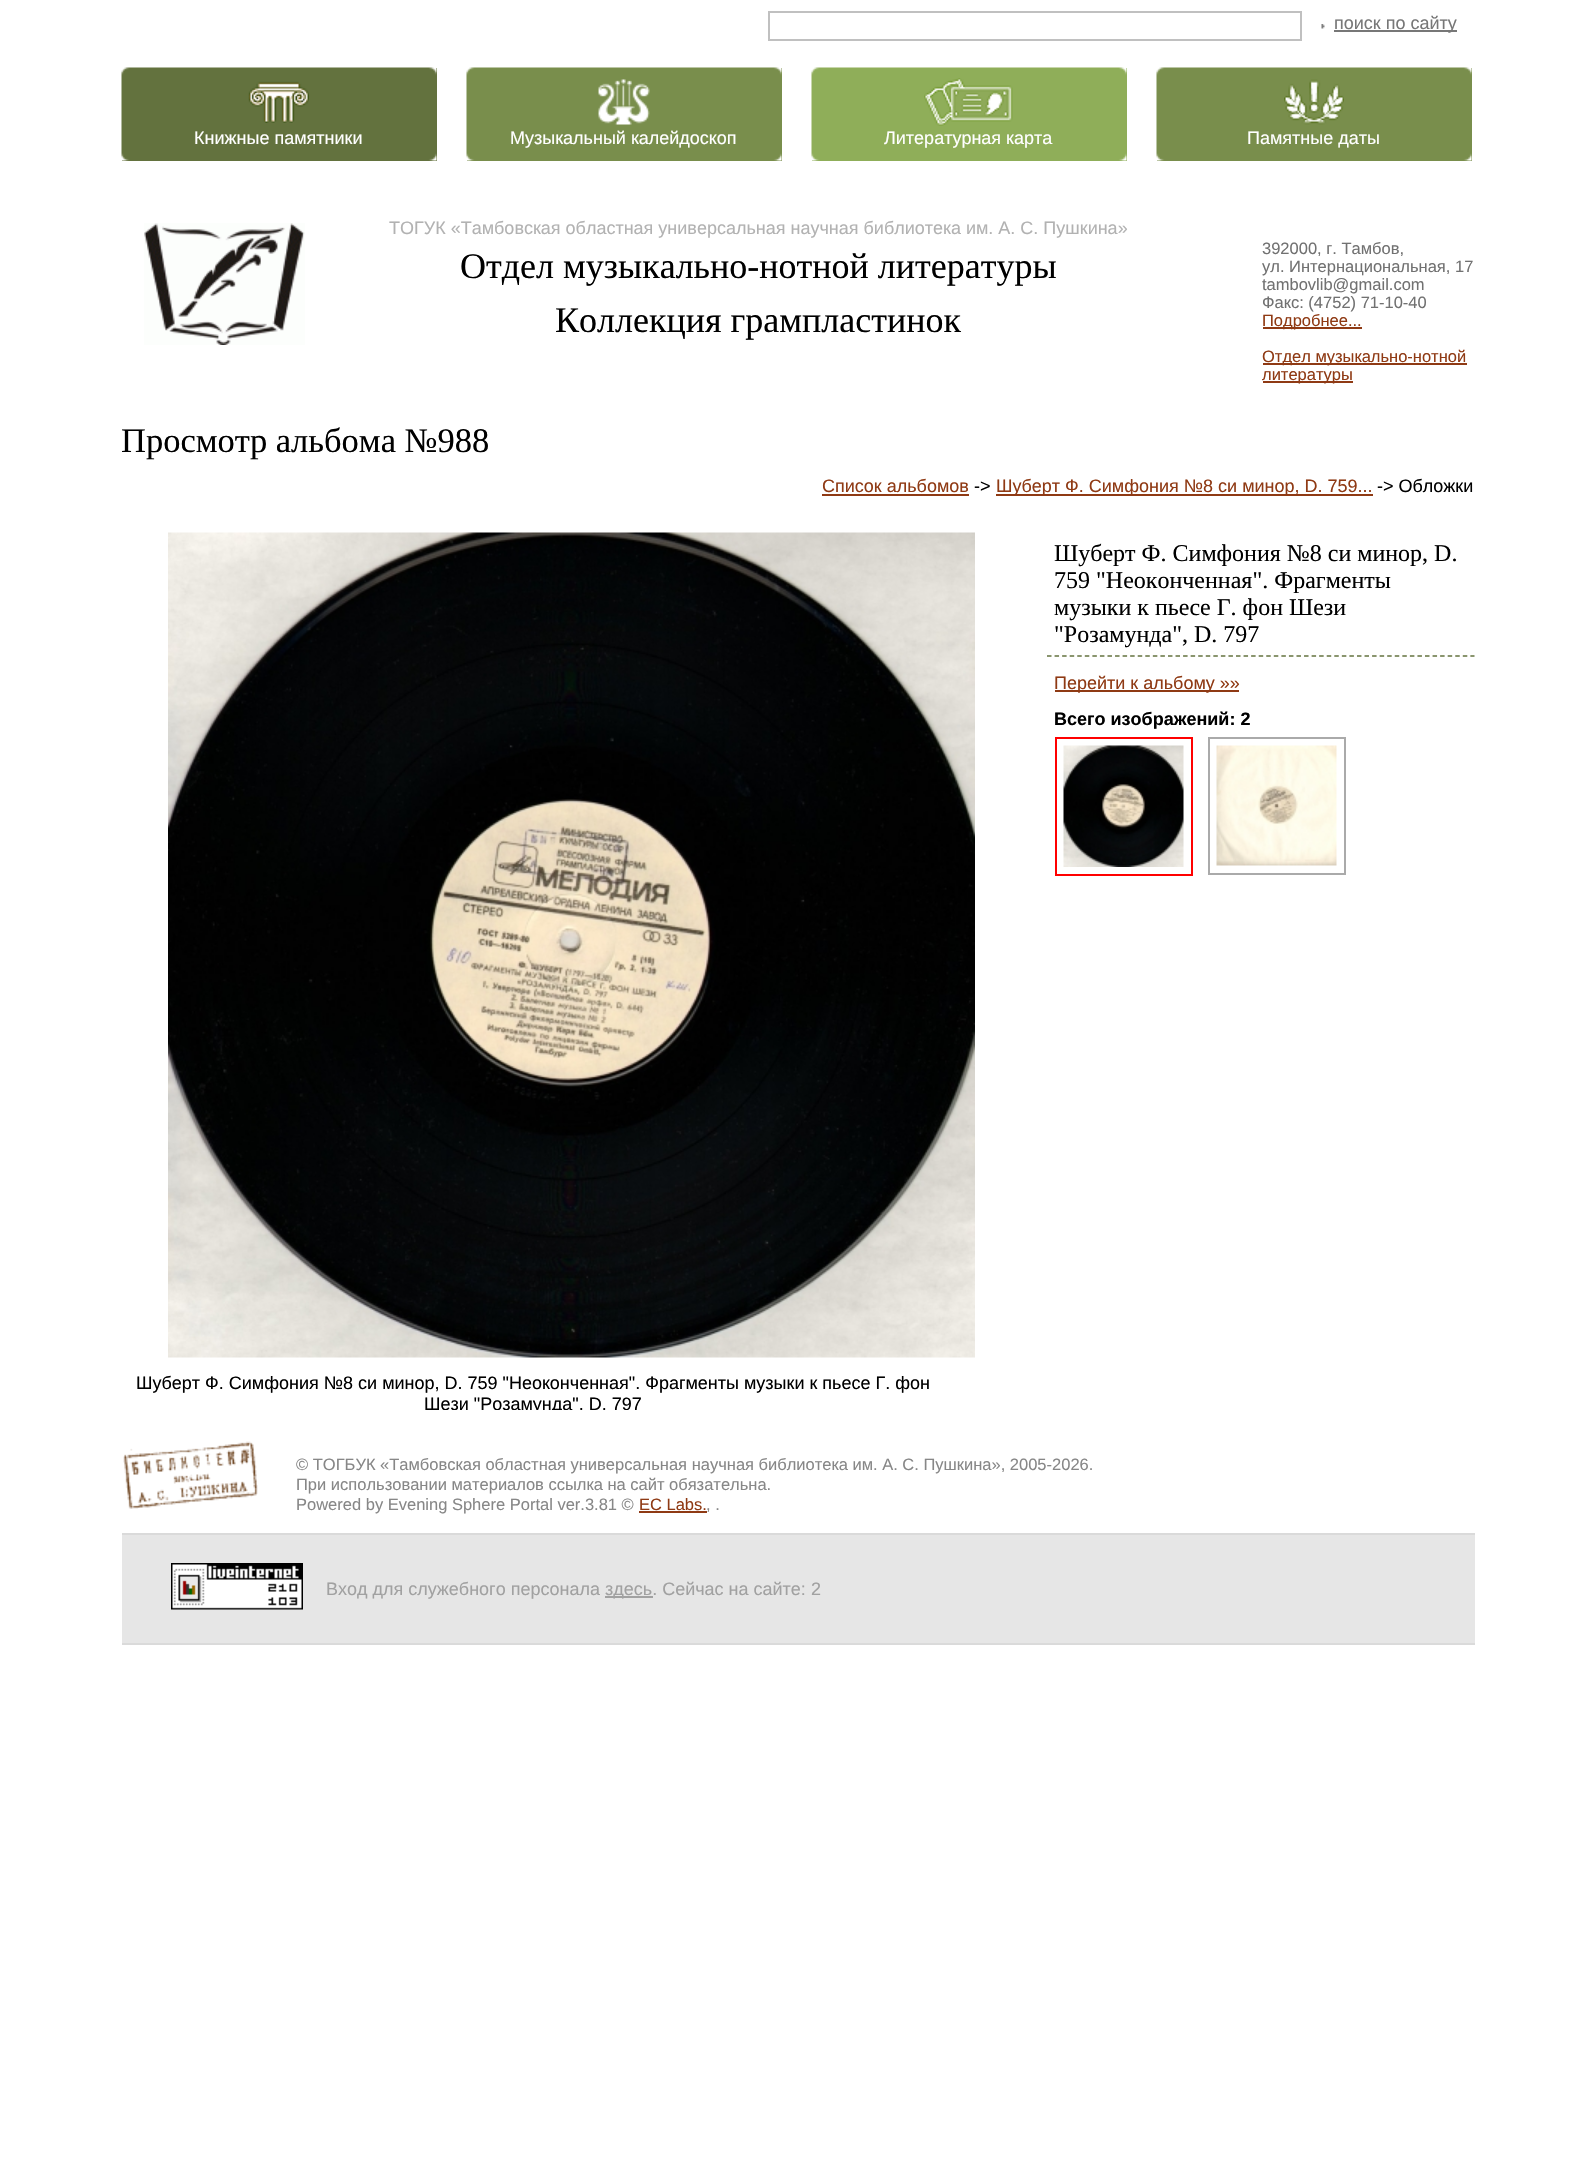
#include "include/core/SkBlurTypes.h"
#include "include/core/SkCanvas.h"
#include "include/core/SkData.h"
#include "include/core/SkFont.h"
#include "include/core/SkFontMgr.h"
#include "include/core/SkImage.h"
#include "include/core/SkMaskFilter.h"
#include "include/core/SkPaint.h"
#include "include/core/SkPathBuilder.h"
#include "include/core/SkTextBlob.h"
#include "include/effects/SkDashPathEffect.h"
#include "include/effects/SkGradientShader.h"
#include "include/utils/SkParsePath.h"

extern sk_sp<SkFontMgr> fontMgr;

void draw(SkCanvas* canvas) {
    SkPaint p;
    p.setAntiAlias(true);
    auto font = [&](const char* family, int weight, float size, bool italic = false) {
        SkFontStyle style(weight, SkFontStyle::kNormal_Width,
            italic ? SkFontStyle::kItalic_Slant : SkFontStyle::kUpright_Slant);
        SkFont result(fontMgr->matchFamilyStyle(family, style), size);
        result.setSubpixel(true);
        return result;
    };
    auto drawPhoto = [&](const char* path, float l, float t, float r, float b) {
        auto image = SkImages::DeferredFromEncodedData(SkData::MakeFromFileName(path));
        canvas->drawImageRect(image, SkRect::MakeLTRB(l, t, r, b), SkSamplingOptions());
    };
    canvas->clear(0xFFFFFFFF);
    p.setStyle(SkPaint::kStroke_Style);
    p.setStrokeWidth(2);
    p.setColor(0xFFC0C0C0);
    canvas->drawRect(SkRect::MakeLTRB(769, 12, 1301, 40), p);
    drawPhoto("media/1.png", 1321, 24, 1325, 29);
    p.setStyle(SkPaint::kFill_Style);
    p.setColor(0xFF777777);
    canvas->drawRect(SkRect::MakeLTRB(1334, 30, 1457, 32), p);
    auto font1 = font("Liberation Sans", 400, 18);
    canvas->drawString("поиск по сайту", 1334, 29, font1, p);
    p.setColor(0xFF63723E);
    canvas->drawRect(SkRect::MakeLTRB(122, 68, 437, 161), p);
    drawPhoto("media/2.png", 121, 67, 437, 161);
    drawPhoto("media/3.png", 248, 81, 309, 123);
    p.setColor(0xFFFFFFFF);
    canvas->drawString("Книжные памятники", 194, 144, font1, p);
    p.setColor(0xFF798E4C);
    canvas->drawRect(SkRect::MakeLTRB(467, 68, 782, 161), p);
    drawPhoto("media/4.png", 466, 67, 782, 161);
    drawPhoto("media/5.png", 598, 79, 650, 125);
    p.setColor(0xFFFFFFFF);
    canvas->drawString("Музыкальный калейдоскоп", 510, 144, font1, p);
    p.setColor(0xFF8FAE59);
    canvas->drawRect(SkRect::MakeLTRB(812, 68, 1127, 161), p);
    drawPhoto("media/6.png", 811, 67, 1127, 161);
    drawPhoto("media/7.png", 924, 78, 1013, 126);
    p.setColor(0xFFFFFFFF);
    canvas->drawString("Литературная карта", 884, 144, font1, p);
    p.setColor(0xFF798E4C);
    canvas->drawRect(SkRect::MakeLTRB(1157, 68, 1472, 161), p);
    drawPhoto("media/8.png", 1156, 67, 1472, 161);
    drawPhoto("media/9.png", 1284, 79, 1344, 125);
    p.setColor(0xFFFFFFFF);
    canvas->drawString("Памятные даты", 1247, 144, font1, p);
    drawPhoto("media/10.png", 144, 223, 305, 345);
    p.setColor(0xFFB2B2B2);
    canvas->drawString("ТОГУК «Тамбовская областная универсальная научная библиотека им. А. С. Пушкина»", 389, 234, font1, p);
    auto font2 = font("Liberation Serif", 400, 36);
    p.setColor(0xFF000000);
    canvas->drawString("Отдел музыкально-нотной литературы", 460, 278, font2, p);
    canvas->drawString("Коллекция грампластинок", 555, 332, font2, p);
    auto font3 = font("Liberation Sans", 400, 16.5f);
    p.setColor(0xFF717171);
    {
        const struct { const char* s; float x, y; } items[] = {
            {"392000, г. Тамбов,", 1262, 254},
            {"ул. Интернациональная, 17", 1262, 272},
            {"tambovlib@gmail.com", 1262, 290},
            {"Факс: (4752) 71-10-40", 1262, 308},
        };
        for (auto [s, x, y] : items) {
            canvas->drawString(s, x, y, font3, p);
        }
    }
    p.setColor(0xFF8F3A14);
    canvas->drawRect(SkRect::MakeLTRB(1263, 327, 1362, 329), p);
    canvas->drawString("Подробнее...", 1262, 326, font3, p);
    canvas->drawRect(SkRect::MakeLTRB(1263, 363, 1467, 365), p);
    canvas->drawString("Отдел музыкально-нотной", 1262, 362, font3, p);
    canvas->drawRect(SkRect::MakeLTRB(1263, 381, 1353, 383), p);
    canvas->drawString("литературы", 1262, 380, font3, p);
    canvas->save();
    canvas->clipRect(SkRect::MakeLTRB(122, 407, 1475, 1410));
    auto font4 = font("Liberation Serif", 400, 34.5f);
    p.setColor(0xFF000000);
    canvas->drawString("Просмотр альбома №988", 121, 452, font4, p);
    canvas->restore();
    p.setColor(0xFF8F3A14);
    canvas->drawString("Список альбомов", 822, 492, font1, p);
    canvas->drawRect(SkRect::MakeLTRB(822, 494, 969, 496), p);
    p.setColor(0xFF000000);
    canvas->drawString("->", 974, 492, font1, p);
    p.setColor(0xFF8F3A14);
    canvas->drawRect(SkRect::MakeLTRB(996, 494, 1373, 496), p);
    canvas->drawString("Шуберт Ф. Симфония №8 си минор, D. 759...", 996, 492, font1, p);
    p.setColor(0xFF000000);
    canvas->drawString("-> Обложки", 1377, 492, font1, p);
    p.setStyle(SkPaint::kStroke_Style);
    p.setStrokeWidth(1.5f);
    p.setColor(0xFF63723E);
    p.setPathEffect(SkDashPathEffect::Make({{4.5f, 3.06f}}, 0));
    canvas->drawPath(SkPathBuilder().moveTo(1047, 656).lineTo(1474.5f, 656).detach(), p);
    p.setPathEffect(nullptr);
    auto font5 = font("Liberation Serif", 400, 24);
    p.setStyle(SkPaint::kFill_Style);
    p.setColor(0xFF000000);
    {
        const struct { const char* s; float x, y; } items[] = {
            {"Шуберт Ф. Симфония №8 си минор, D.", 1054, 561},
            {"759 \"Неоконченная\". Фрагменты", 1054, 588},
            {"музыки к пьесе Г. фон Шези", 1054, 615},
            {"\"Розамунда\", D. 797", 1054, 642},
        };
        for (auto [s, x, y] : items) {
            canvas->drawString(s, x, y, font5, p);
        }
    }
    p.setColor(0xFF8F3A14);
    canvas->drawRect(SkRect::MakeLTRB(1055, 690, 1239, 692), p);
    canvas->drawString("Перейти к альбому »»", 1054, 689, font1, p);
    auto font6 = font("Liberation Sans", 700, 18);
    p.setColor(0xFF000000);
    canvas->drawString("Всего изображений: 2", 1054, 725, font6, p);
    p.setStyle(SkPaint::kStroke_Style);
    p.setStrokeWidth(2);
    p.setColor(0xFFFF0000);
    canvas->drawRect(SkRect::MakeLTRB(1056, 738, 1192, 875), p);
    drawPhoto("media/11.png", 1063, 745, 1184, 867);
    p.setColor(0xFFAAAAAA);
    canvas->drawRect(SkRect::MakeLTRB(1209, 738, 1345, 874), p);
    drawPhoto("media/12.png", 1216, 745, 1337, 866);
    drawPhoto("media/13.png", 168, 532, 975, 1358);
    p.setStyle(SkPaint::kFill_Style);
    p.setColor(0xFF000000);
    canvas->drawString("Шуберт Ф. Симфония №8 си минор, D. 759 \"Неоконченная\". Фрагменты музыки к пьесе Г. фон", 136, 1389, font1, p);
    canvas->save();
    canvas->clipRect(SkRect::MakeLTRB(122, 518, 1475, 1410));
    canvas->drawString("Шези \"Розамунда\", D. 797", 424, 1410, font1, p);
    canvas->restore();
    drawPhoto("media/14.png", 123, 1441, 258, 1509);
    p.setColor(0xFF878787);
    {
        const struct { const char* s; float x, y; } items[] = {
            {"© ТОГБУК «Тамбовская областная универсальная научная библиотека им. А. С. Пушкина», 2005-2026.", 296, 1470},
            {"При использовании материалов ссылка на сайт обязательна.", 296, 1490},
            {"Powered by Evening Sphere Portal ver.3.81 ©", 296, 1510},
        };
        for (auto [s, x, y] : items) {
            canvas->drawString(s, x, y, font3, p);
        }
    }
    p.setColor(0xFF8F3A14);
    canvas->drawString("EC Labs.", 639, 1510, font3, p);
    canvas->drawRect(SkRect::MakeLTRB(639, 1511, 707, 1513), p);
    p.setColor(0xFF878787);
    canvas->drawString(", .", 706, 1510, font3, p);
    {
        const struct { float l, t, r, b; SkColor color; } items[] = {
            {122, 1535, 1475, 1643, 0xFFE6E6E6},
            {122, 1533, 1475, 1535, 0xFFDADADA},
            {122, 1643, 1475, 1645, 0xFFDADADA},
        };
        for (auto [l, t, r, b, color] : items) {
            p.setColor(color);
            canvas->drawRect(SkRect::MakeLTRB(l, t, r, b), p);
        }
    }
    drawPhoto("media/15.png", 171, 1563, 303, 1610);
    p.setColor(0xFFA1A1A1);
    canvas->drawString("Вход для служебного персонала", 326, 1595, font1, p);
    canvas->drawRect(SkRect::MakeLTRB(605, 1596, 653, 1598), p);
    canvas->drawString("здесь. Сейчас на сайте: 2", 605, 1595, font1, p);
}
